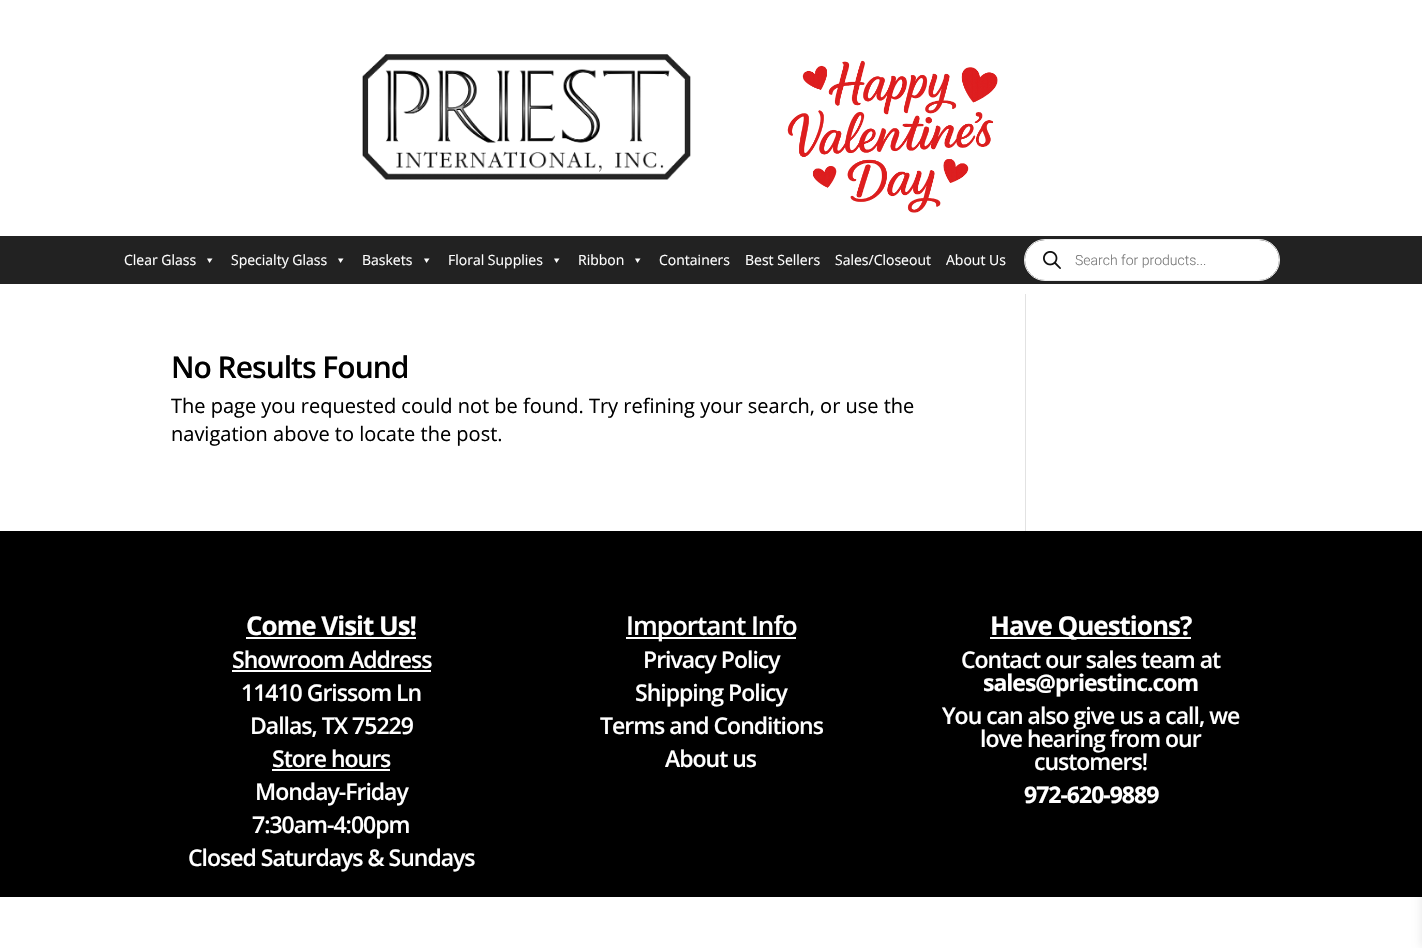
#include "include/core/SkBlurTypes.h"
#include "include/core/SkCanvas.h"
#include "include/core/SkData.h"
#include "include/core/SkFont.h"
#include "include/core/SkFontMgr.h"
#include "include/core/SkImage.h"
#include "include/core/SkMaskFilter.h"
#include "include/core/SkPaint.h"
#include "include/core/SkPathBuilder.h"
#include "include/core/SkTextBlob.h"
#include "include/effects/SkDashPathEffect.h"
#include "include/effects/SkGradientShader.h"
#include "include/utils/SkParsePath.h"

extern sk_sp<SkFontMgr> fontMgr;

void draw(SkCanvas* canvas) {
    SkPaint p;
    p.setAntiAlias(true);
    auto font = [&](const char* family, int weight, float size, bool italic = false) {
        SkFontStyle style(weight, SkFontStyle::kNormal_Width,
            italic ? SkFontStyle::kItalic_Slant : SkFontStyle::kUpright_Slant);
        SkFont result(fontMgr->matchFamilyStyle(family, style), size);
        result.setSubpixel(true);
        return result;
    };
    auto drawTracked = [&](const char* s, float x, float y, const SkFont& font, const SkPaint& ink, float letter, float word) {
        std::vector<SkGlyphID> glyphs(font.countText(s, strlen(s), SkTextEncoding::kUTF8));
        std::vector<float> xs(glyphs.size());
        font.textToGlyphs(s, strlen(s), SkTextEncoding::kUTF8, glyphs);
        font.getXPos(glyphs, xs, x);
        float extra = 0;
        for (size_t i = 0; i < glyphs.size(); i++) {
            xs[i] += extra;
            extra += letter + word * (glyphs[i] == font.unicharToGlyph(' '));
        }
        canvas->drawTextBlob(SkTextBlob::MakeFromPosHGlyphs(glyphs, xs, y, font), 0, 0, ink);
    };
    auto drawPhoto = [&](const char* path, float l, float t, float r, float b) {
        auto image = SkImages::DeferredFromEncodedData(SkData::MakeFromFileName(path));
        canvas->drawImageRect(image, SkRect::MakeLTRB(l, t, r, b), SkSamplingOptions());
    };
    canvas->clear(0xFFFFFFFF);
    drawPhoto("media/1.png", 362, 54, 691, 180);
    drawPhoto("media/2.png", 787, 60, 998, 213);
    p.setColor(0xFF222222);
    canvas->drawRect(SkRect::MakeLTRB(0, 236, 1422, 284), p);
    auto font1 = font("Open Sans", 400, 14);
    p.setColor(0xFFFFFFFF);
    canvas->drawString("Clear Glass", 124, 265, font1, p);
    canvas->drawPath(SkPathBuilder().moveTo(212.5f, 258.5f).lineTo(209.5f, 263).lineTo(207, 258.5f).close().detach(), p);
    canvas->drawString("Specialty Glass", 231, 265, font1, p);
    canvas->drawPath(SkPathBuilder().moveTo(343.5f, 258.5f).lineTo(340.5f, 263).lineTo(338, 258.5f).close().detach(), p);
    canvas->drawString("Baskets", 362, 265, font1, p);
    canvas->drawPath(SkPathBuilder().moveTo(429.5f, 258.5f).lineTo(426.5f, 263).lineTo(424, 258.5f).close().detach(), p);
    canvas->drawString("Floral Supplies", 448, 265, font1, p);
    canvas->drawPath(SkPathBuilder().moveTo(559.5f, 258.5f).lineTo(556.5f, 263).lineTo(554, 258.5f).close().detach(), p);
    canvas->drawString("Ribbon", 578, 265, font1, p);
    canvas->drawPath(SkPathBuilder().moveTo(640.5f, 258.5f).lineTo(637.5f, 263).lineTo(635, 258.5f).close().detach(), p);
    {
        const struct { const char* s; float x, y; } items[] = {
            {"Containers", 659, 265},
            {"Best Sellers", 745, 265},
            {"Sales/Closeout", 835, 265},
            {"About Us", 946, 265},
        };
        for (auto [s, x, y] : items) {
            canvas->drawString(s, x, y, font1, p);
        }
    }
    p.setStyle(SkPaint::kStroke_Style);
    p.setStrokeWidth(1);
    p.setColor(0xFFEEEEEE);
    canvas->drawRoundRect(SkRect::MakeLTRB(1024.5f, 239.5f, 1279.5f, 280.5f), 20.5f, 20.5f, p);
    p.setStyle(SkPaint::kFill_Style);
    p.setColor(0xFFFFFFFF);
    canvas->drawRoundRect(SkRect::MakeLTRB(1025, 240, 1279, 280), 20, 20, p);
    drawPhoto("media/3.png", 1043, 251, 1061, 269);
    auto font2 = font("Roboto", 300, 14);
    p.setColor(0xFF777777);
    canvas->drawString("Search for products...", 1075, 265, font2, p);
    auto font3 = font("Open Sans", 600, 30);
    p.setColor(0xFF000000);
    drawTracked("No Results Found", 171, 378, font3, p, -1, 0);
    auto font4 = font("Open Sans", 400, 20);
    canvas->drawString("The page you requested could not be found. Try refining your search, or use the", 171, 413, font4, p);
    canvas->drawString("navigation above to locate the post.", 171, 441, font4, p);
    p.setColor(0xFFE2E2E2);
    canvas->drawRect(SkRect::MakeLTRB(1025, 294, 1026, 531), p);
    p.setColor(0xFF000000);
    canvas->drawRect(SkRect::MakeLTRB(0, 531, 1422, 897), p);
    auto font5 = font("Open Sans", 700, 26);
    p.setColor(0xFFFFFFFF);
    drawTracked("Come Visit Us!", 246, 635, font5, p, -1, 0);
    canvas->drawRect(SkRect::MakeLTRB(246, 637, 416, 639), p);
    auto font6 = font("Open Sans", 600, 23);
    drawTracked("Showroom Address", 232, 668, font6, p, -1, 0);
    canvas->drawRect(SkRect::MakeLTRB(232, 670, 431, 672), p);
    {
        const struct { const char* s; float x, y; } items[] = {
            {"11410 Grissom Ln", 241, 701},
            {"Dallas, TX 75229", 250, 734},
            {"Store hours", 272, 767},
        };
        for (auto [s, x, y] : items) {
            drawTracked(s, x, y, font6, p, -1, 0);
        }
    }
    canvas->drawRect(SkRect::MakeLTRB(272, 769, 390, 771), p);
    {
        const struct { const char* s; float x, y; } items[] = {
            {"Monday-Friday", 255, 800},
            {"7:30am-4:00pm", 252, 833},
            {"Closed Saturdays & Sundays", 188, 866},
        };
        for (auto [s, x, y] : items) {
            drawTracked(s, x, y, font6, p, -1, 0);
        }
    }
    canvas->drawRect(SkRect::MakeLTRB(626, 637, 796, 639), p);
    auto font7 = font("Open Sans", 600, 26);
    drawTracked("Important Info", 626, 635, font7, p, -1, 0);
    {
        const struct { const char* s; float x, y; } items[] = {
            {"Privacy Policy", 643, 668},
            {"Shipping Policy", 635, 701},
            {"Terms and Conditions", 600, 734},
            {"About us", 665, 767},
        };
        for (auto [s, x, y] : items) {
            drawTracked(s, x, y, font6, p, -1, 0);
        }
    }
    canvas->drawRect(SkRect::MakeLTRB(990, 637, 1191, 639), p);
    drawTracked("Have Questions?", 990, 635, font5, p, -1, 0);
    drawTracked("Contact our sales team at", 961, 668, font6, p, -1, 0);
    auto font8 = font("Open Sans", 700, 23);
    drawTracked("sales@priestinc.com", 983, 691, font8, p, -1, 0);
    {
        const struct { const char* s; float x, y; } items[] = {
            {"You can also give us a call, we", 942, 724},
            {"love hearing from our", 980, 747},
            {"customers!", 1034, 770},
        };
        for (auto [s, x, y] : items) {
            drawTracked(s, x, y, font6, p, -1, 0);
        }
    }
    drawTracked("972-620-9889", 1024, 803, font8, p, -1, 0);
    p.setColor(0x1A000000);
    p.setMaskFilter(SkMaskFilter::MakeBlur(kNormal_SkBlurStyle, 5));
    canvas->drawRect(SkRect::MakeLTRB(1422, 875, 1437, 947), p);
    p.setMaskFilter(nullptr);
}
